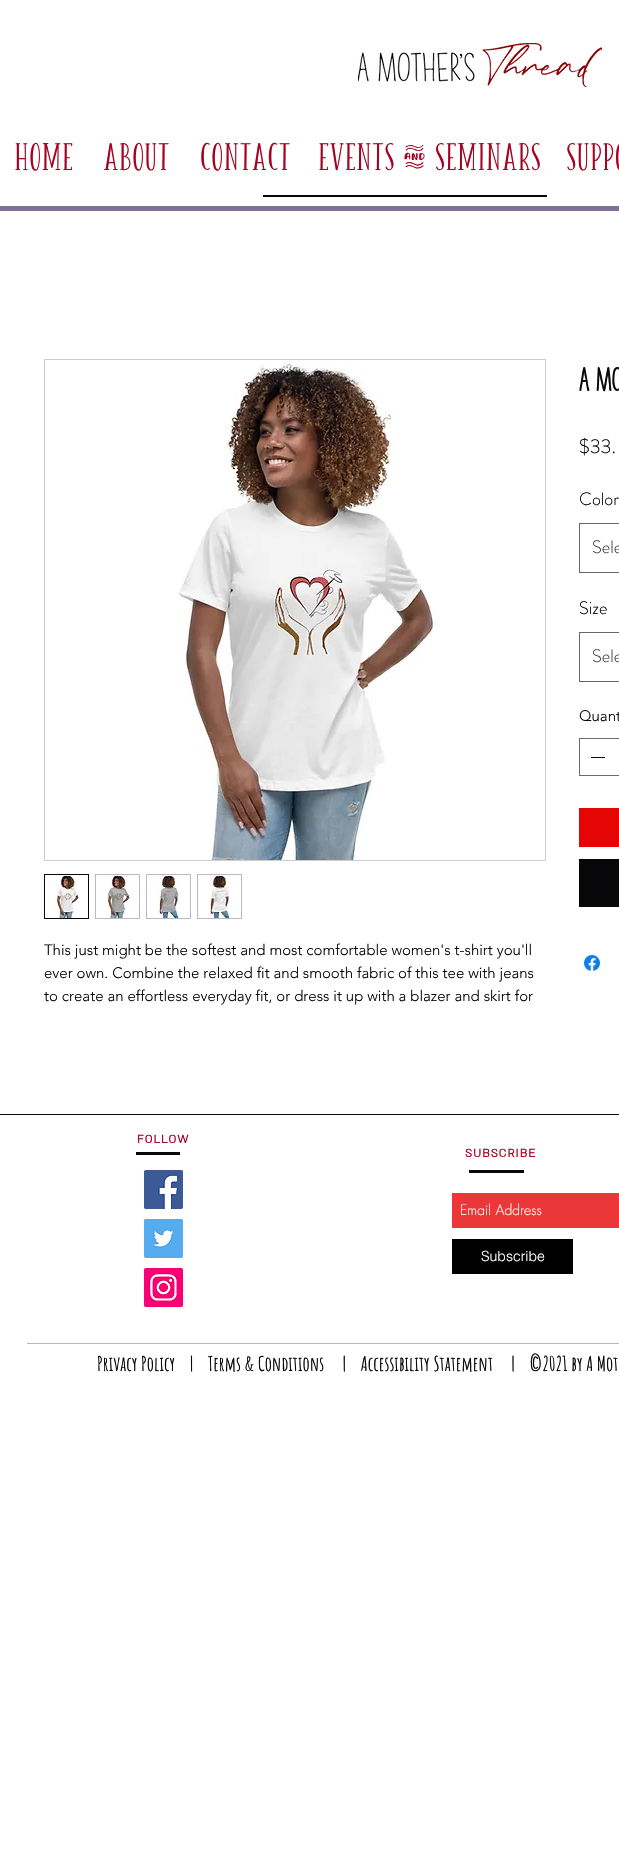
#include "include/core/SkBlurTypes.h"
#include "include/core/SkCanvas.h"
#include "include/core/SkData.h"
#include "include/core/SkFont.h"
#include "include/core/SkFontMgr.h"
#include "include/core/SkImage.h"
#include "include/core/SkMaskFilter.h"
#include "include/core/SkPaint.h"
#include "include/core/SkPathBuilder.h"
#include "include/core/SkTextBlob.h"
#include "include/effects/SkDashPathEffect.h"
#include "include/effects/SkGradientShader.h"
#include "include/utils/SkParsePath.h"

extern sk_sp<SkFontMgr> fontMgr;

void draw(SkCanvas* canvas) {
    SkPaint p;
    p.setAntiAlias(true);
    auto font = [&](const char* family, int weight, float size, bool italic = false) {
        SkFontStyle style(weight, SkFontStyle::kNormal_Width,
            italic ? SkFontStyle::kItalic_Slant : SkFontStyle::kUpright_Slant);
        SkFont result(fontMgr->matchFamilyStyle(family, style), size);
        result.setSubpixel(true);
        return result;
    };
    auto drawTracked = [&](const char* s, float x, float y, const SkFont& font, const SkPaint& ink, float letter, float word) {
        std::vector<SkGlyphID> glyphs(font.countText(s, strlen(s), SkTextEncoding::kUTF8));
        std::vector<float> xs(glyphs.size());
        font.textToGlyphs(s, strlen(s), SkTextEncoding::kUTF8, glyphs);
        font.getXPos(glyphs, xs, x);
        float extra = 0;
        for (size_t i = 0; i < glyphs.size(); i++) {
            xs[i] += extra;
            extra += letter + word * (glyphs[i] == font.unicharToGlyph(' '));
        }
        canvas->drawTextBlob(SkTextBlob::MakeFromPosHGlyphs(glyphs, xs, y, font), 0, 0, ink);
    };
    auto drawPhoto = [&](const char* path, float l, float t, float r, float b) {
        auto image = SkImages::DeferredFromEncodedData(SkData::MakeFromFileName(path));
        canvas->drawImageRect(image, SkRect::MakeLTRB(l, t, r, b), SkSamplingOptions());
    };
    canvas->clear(0xFFFFFFFF);
    drawPhoto("media/1.png", 358, 43, 602, 87);
    auto font1 = font("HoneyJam", 400, 37);
    p.setColor(0xFFA50322);
    {
        const struct { const char* s; float x, y; } items[] = {
            {"HOME", 14, 170},
            {"ABOUT", 103, 170},
            {"CONTACT", 200, 170},
            {"EVENTS & SEMINARS", 318, 170},
            {"SUPPO", 566, 170},
        };
        for (auto [s, x, y] : items) {
            canvas->drawString(s, x, y, font1, p);
        }
    }
    p.setColor(0xFF08070A);
    canvas->drawRect(SkRect::MakeLTRB(263, 195, 547, 197), p);
    p.setColor(0xFF7D6E9A);
    canvas->drawRect(SkRect::MakeLTRB(0, 206, 619, 211), p);
    auto font2 = font("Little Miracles", 700, 35);
    p.setColor(0xFF08070A);
    canvas->drawString("A Mo", 579, 391, font2, p);
    auto font3 = font("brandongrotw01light", 300, 20);
    canvas->drawString("$33.", 579, 453, font3, p);
    auto font4 = font("brandongrotw01light", 300, 18);
    canvas->drawString("Color", 579, 505, font4, p);
    p.setStyle(SkPaint::kStroke_Style);
    p.setStrokeWidth(1);
    p.setColor(0xFF666666);
    canvas->drawRect(SkRect::MakeLTRB(579.5f, 523.5f, 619.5f, 572.5f), p);
    p.setStyle(SkPaint::kFill_Style);
    p.setColor(0xFF444444);
    canvas->drawString("Sele", 592, 553, font4, p);
    p.setColor(0xFF08070A);
    canvas->drawString("Size", 579, 614, font4, p);
    p.setStyle(SkPaint::kStroke_Style);
    p.setColor(0xFF666666);
    canvas->drawRect(SkRect::MakeLTRB(579.5f, 632.5f, 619.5f, 681.5f), p);
    p.setStyle(SkPaint::kFill_Style);
    p.setColor(0xFF444444);
    canvas->drawString("Sele", 592, 662, font4, p);
    auto font5 = font("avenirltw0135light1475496", 300, 15);
    p.setColor(0xFF08070A);
    canvas->drawString("Quant", 579, 721, font5, p);
    p.setStyle(SkPaint::kStroke_Style);
    p.setColor(0xFF6B6A6C);
    canvas->drawRect(SkRect::MakeLTRB(579.5f, 738.5f, 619.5f, 775.5f), p);
    p.setStyle(SkPaint::kFill_Style);
    {
        const struct { float l, t, r, b; SkColor color; } items[] = {
            {591, 757, 605, 758, 0xFF08070A},
            {579, 808, 619, 847, 0xFFE60505},
            {579, 859, 619, 907, 0xFF08070A},
        };
        for (auto [l, t, r, b, color] : items) {
            p.setColor(color);
            canvas->drawRect(SkRect::MakeLTRB(l, t, r, b), p);
        }
    }
    drawPhoto("media/2.png", 584, 955, 600, 971);
    p.setStyle(SkPaint::kStroke_Style);
    p.setColor(0xFFCECDCE);
    canvas->drawRect(SkRect::MakeLTRB(44.5f, 359.5f, 545.5f, 860.5f), p);
    drawPhoto("media/3.png", 177, 364, 434, 860);
    p.setColor(0xFF08070A);
    canvas->drawRect(SkRect::MakeLTRB(44.5f, 874.5f, 88.5f, 918.5f), p);
    drawPhoto("media/4.png", 53, 875, 80, 918);
    p.setColor(0xFFBEB6CC);
    canvas->drawRect(SkRect::MakeLTRB(95.5f, 874.5f, 139.5f, 918.5f), p);
    drawPhoto("media/5.png", 106, 875, 132, 918);
    canvas->drawRect(SkRect::MakeLTRB(146.5f, 874.5f, 190.5f, 918.5f), p);
    drawPhoto("media/6.png", 157, 875, 180, 918);
    canvas->drawRect(SkRect::MakeLTRB(197.5f, 874.5f, 241.5f, 918.5f), p);
    drawPhoto("media/7.png", 209, 875, 231, 918);
    p.setStyle(SkPaint::kFill_Style);
    p.setColor(0xFF08070A);
    {
        const struct { const char* s; float x, y; } items[] = {
            {"This just might be the softest and most comfortable women's t-shirt you'll", 44, 955},
            {"ever own. Combine the relaxed fit and smooth fabric of this tee with jeans", 44, 978},
            {"to create an effortless everyday fit, or dress it up with a blazer and skirt for", 44, 1001},
        };
        for (auto [s, x, y] : items) {
            canvas->drawString(s, x, y, font5, p);
        }
    }
    canvas->drawRect(SkRect::MakeLTRB(0, 1114, 619, 1115), p);
    auto font6 = font("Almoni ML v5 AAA", 700, 13);
    p.setColor(0xFFA50322);
    drawTracked("FOLLOW", 137, 1143, font6, p, 1.25f, 0);
    p.setColor(0xFF08070A);
    canvas->drawRect(SkRect::MakeLTRB(136, 1152, 180, 1155), p);
    drawPhoto("media/8.png", 144, 1170, 183, 1209);
    drawPhoto("media/9.png", 144, 1219, 183, 1258);
    drawPhoto("media/10.png", 144, 1268, 183, 1307);
    p.setColor(0xFFA50322);
    drawTracked("SUBSCRIBE", 465, 1157, font6, p, 1.25f, 0);
    p.setColor(0xFF08070A);
    canvas->drawRect(SkRect::MakeLTRB(469, 1170, 524, 1173), p);
    p.setColor(0xFFEB3737);
    canvas->drawRect(SkRect::MakeLTRB(452, 1193, 619, 1228), p);
    auto font7 = font("futura", 300, 14);
    p.setColor(0xFFFFFFFF);
    canvas->drawString("Email Address", 460, 1215, font7, p);
    p.setColor(0xFF000000);
    canvas->drawRect(SkRect::MakeLTRB(452, 1239, 573, 1274), p);
    auto font8 = font("helvetica", 300, 14);
    p.setColor(0xFFFFFFFF);
    canvas->drawString("Subscribe", 481, 1261, font8, p);
    p.setColor(0xFFB8B8B8);
    canvas->drawRect(SkRect::MakeLTRB(27, 1343, 619, 1344), p);
    auto font9 = font("Amatic SC", 700, 20);
    p.setColor(0xFF08070A);
    canvas->drawString("Privacy Policy    |    Terms & Conditions     |    Accessibility Statement     |    ©2021 by A Mot", 97, 1371, font9, p);
}
